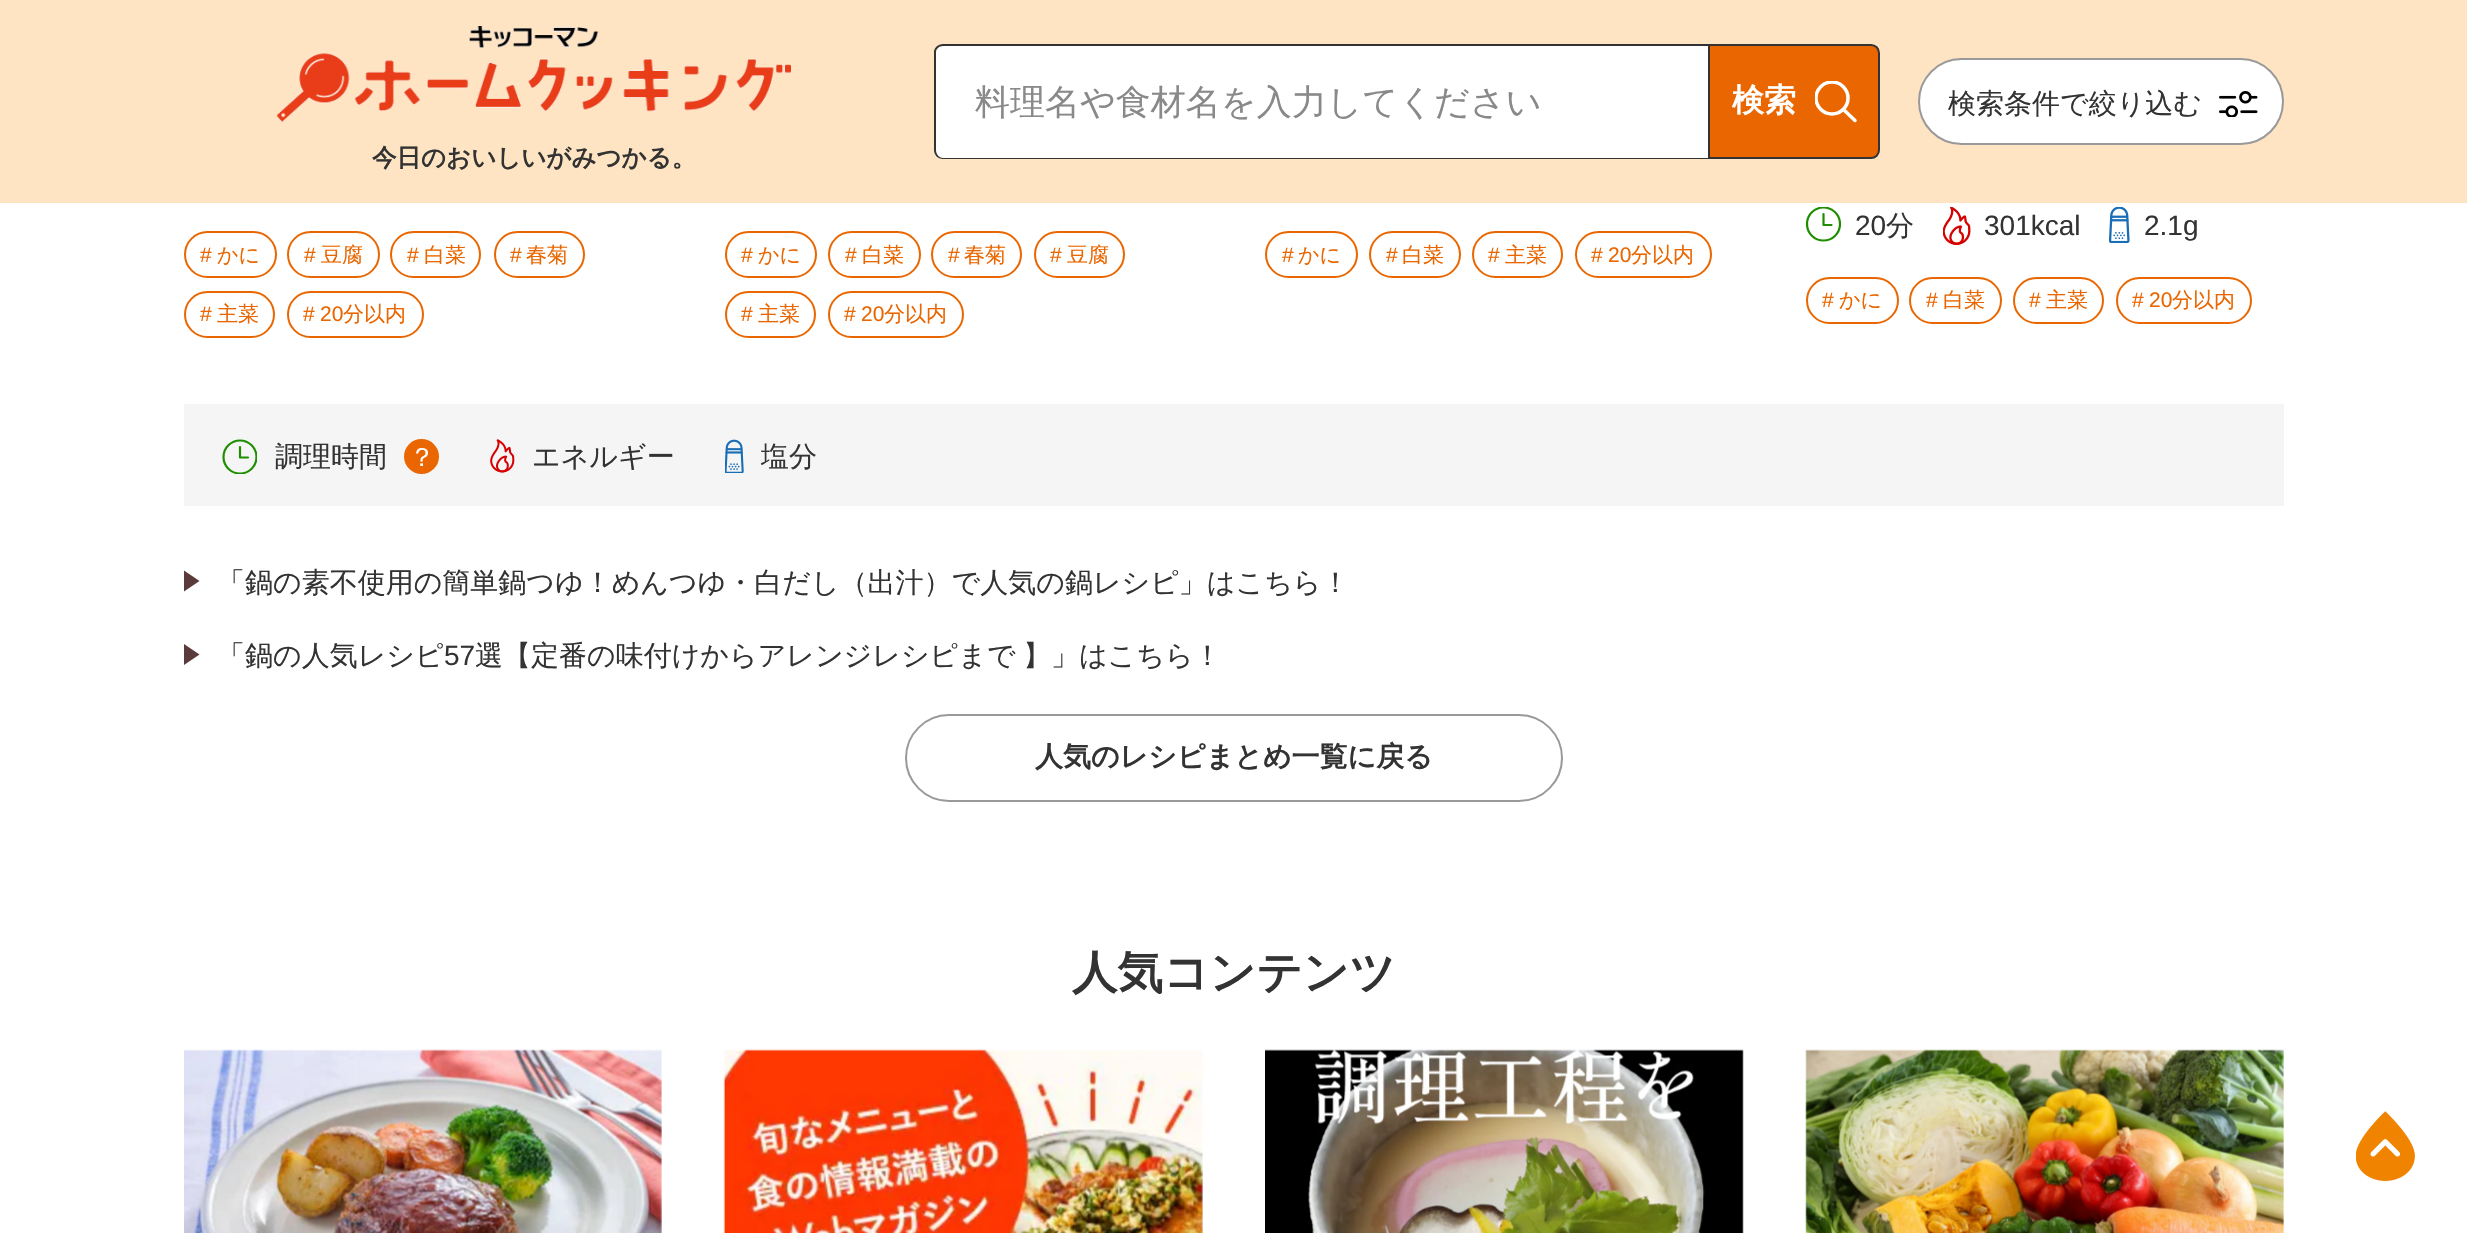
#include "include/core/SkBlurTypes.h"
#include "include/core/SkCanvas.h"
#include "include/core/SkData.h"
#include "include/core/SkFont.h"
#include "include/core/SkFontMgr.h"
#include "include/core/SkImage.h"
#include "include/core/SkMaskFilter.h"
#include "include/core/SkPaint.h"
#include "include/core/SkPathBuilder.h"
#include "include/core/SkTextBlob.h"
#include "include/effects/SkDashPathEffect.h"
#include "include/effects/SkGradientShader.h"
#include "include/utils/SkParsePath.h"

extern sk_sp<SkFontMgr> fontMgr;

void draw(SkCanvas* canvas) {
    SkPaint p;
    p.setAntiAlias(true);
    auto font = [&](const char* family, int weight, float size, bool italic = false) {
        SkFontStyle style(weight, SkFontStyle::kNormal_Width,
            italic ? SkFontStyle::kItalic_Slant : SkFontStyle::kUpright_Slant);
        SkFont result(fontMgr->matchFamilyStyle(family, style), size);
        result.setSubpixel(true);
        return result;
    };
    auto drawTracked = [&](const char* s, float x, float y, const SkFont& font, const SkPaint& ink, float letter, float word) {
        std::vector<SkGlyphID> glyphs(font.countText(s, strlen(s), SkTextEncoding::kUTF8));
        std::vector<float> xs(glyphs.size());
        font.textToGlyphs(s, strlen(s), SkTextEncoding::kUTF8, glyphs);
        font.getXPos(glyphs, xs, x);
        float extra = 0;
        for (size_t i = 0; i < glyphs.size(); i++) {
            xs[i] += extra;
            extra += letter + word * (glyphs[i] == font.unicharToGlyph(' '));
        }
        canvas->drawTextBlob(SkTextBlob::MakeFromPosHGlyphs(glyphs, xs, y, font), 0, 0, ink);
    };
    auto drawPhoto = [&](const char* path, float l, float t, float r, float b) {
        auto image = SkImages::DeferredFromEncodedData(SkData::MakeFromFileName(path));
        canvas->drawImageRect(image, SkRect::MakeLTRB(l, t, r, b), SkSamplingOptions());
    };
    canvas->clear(0xFFFFFFFF);
    p.setColor(0xFFFFE4C3);
    canvas->drawRect(SkRect::MakeLTRB(0, 0, 2467, 203), p);
    p.setColor(0xFFFFFFFF);
    canvas->drawPath(SkPathBuilder().moveTo(943, 46).lineTo(1708, 46).lineTo(1708, 158).lineTo(943, 158).cubicTo(939, 158, 936, 155, 936, 151).lineTo(936, 53).cubicTo(936, 49, 939, 46, 943, 46).close().detach(), p);
    p.setColor(0xFF333333);
    canvas->drawPath(SkPathBuilder(SkPathFillType::kEvenOdd).moveTo(943, 44).lineTo(1708, 44).lineTo(1708, 159).lineTo(943, 159).cubicTo(938, 159, 934, 155, 934, 150).lineTo(934, 52).cubicTo(934, 48, 938, 44, 943, 44).close().moveTo(943, 46).lineTo(1708, 46).lineTo(1708, 158).lineTo(943, 158).cubicTo(939, 158, 936, 154, 936, 150).lineTo(936, 52).cubicTo(936, 49, 939, 46, 943, 46).close().detach(), p);
    auto font1 = font("WenQuanYi Zen Hei", 500, 35);
    p.setColor(0xFF898989);
    canvas->drawString("料理名や食材名を入力してください", 975, 114, font1, p);
    p.setColor(0xFFE96600);
    canvas->drawPath(SkPathBuilder().moveTo(1709, 45).lineTo(1871, 45).cubicTo(1875.5f, 45, 1879, 48.5f, 1879, 53).lineTo(1879, 150).cubicTo(1879, 154.5f, 1875.5f, 158, 1871, 158).lineTo(1709, 158).close().detach(), p);
    p.setStyle(SkPaint::kStroke_Style);
    p.setStrokeWidth(2);
    p.setColor(0xFF333333);
    canvas->drawPath(SkPathBuilder().moveTo(1709, 45).lineTo(1871, 45).cubicTo(1875.5f, 45, 1879, 48.5f, 1879, 53).lineTo(1879, 150).cubicTo(1879, 154.5f, 1875.5f, 158, 1871, 158).lineTo(1709, 158).close().detach(), p);
    auto font2 = font("WenQuanYi Zen Hei", 700, 32);
    p.setStyle(SkPaint::kFill_Style);
    p.setColor(0xFFFFFFFF);
    canvas->drawString("検索", 1732, 111, font2, p);
    canvas->save();
    canvas->clipRect(SkRect::MakeLTRB(1815, 81, 1857, 123));
    p.setStyle(SkPaint::kStroke_Style);
    p.setStrokeWidth(3.5f);
    canvas->drawCircle(1832, 98, 16, p);
    canvas->restore();
    p.setStrokeCap(SkPaint::kRound_Cap);
    p.setStrokeJoin(SkPaint::kRound_Join);
    canvas->drawPath(SkPathBuilder().moveTo(1844, 110).lineTo(1855, 120.5f).detach(), p);
    p.setStyle(SkPaint::kFill_Style);
    canvas->drawRoundRect(SkRect::MakeLTRB(1919, 59, 2283, 144), 42.5f, 42.5f, p);
    p.setStyle(SkPaint::kStroke_Style);
    p.setStrokeWidth(2);
    p.setStrokeCap(SkPaint::kButt_Cap);
    p.setStrokeJoin(SkPaint::kMiter_Join);
    p.setColor(0xFF999999);
    canvas->drawRoundRect(SkRect::MakeLTRB(1919, 59, 2283, 144), 42.5f, 42.5f, p);
    auto font3 = font("WenQuanYi Zen Hei", 500, 28);
    p.setStyle(SkPaint::kFill_Style);
    p.setColor(0xFF333333);
    canvas->drawString("検索条件で絞り込む", 1948, 113, font3, p);
    drawPhoto("media/1.png", 2219, 91, 2258, 117);
    drawPhoto("media/2.png", 277, 26, 791, 122);
    auto font4 = font("WenQuanYi Zen Hei", 700, 24.5f);
    canvas->drawString("今日のおいしいがみつかる。", 372, 166, font4, p);
    p.setStyle(SkPaint::kStroke_Style);
    p.setColor(0xFFE96600);
    canvas->drawRoundRect(SkRect::MakeLTRB(185, 232, 276, 277), 22.5f, 22.5f, p);
    auto font5 = font("Liberation Sans", 400, 21);
    p.setStyle(SkPaint::kFill_Style);
    canvas->drawString("#", 200, 262, font5, p);
    auto font6 = font("WenQuanYi Zen Hei", 500, 21);
    canvas->drawString("かに", 217, 262, font6, p);
    p.setStyle(SkPaint::kStroke_Style);
    canvas->drawRoundRect(SkRect::MakeLTRB(288, 232, 379, 277), 22.5f, 22.5f, p);
    p.setStyle(SkPaint::kFill_Style);
    canvas->drawString("#", 304, 262, font5, p);
    canvas->drawString("豆腐", 321, 262, font6, p);
    p.setStyle(SkPaint::kStroke_Style);
    canvas->drawRoundRect(SkRect::MakeLTRB(391, 232, 480, 277), 22.5f, 22.5f, p);
    p.setStyle(SkPaint::kFill_Style);
    canvas->drawString("#", 407, 262, font5, p);
    canvas->drawString("白菜", 424, 262, font6, p);
    p.setStyle(SkPaint::kStroke_Style);
    canvas->drawRoundRect(SkRect::MakeLTRB(495, 232, 584, 277), 22.5f, 22.5f, p);
    p.setStyle(SkPaint::kFill_Style);
    canvas->drawString("#", 510, 262, font5, p);
    canvas->drawString("春菊", 526, 262, font6, p);
    p.setStyle(SkPaint::kStroke_Style);
    canvas->drawRoundRect(SkRect::MakeLTRB(185, 292, 274, 337), 22.5f, 22.5f, p);
    p.setStyle(SkPaint::kFill_Style);
    canvas->drawString("#", 200, 321, font5, p);
    canvas->drawString("主菜", 217, 321, font6, p);
    p.setStyle(SkPaint::kStroke_Style);
    canvas->drawRoundRect(SkRect::MakeLTRB(288, 292, 423, 337), 22.5f, 22.5f, p);
    p.setStyle(SkPaint::kFill_Style);
    canvas->drawString("#", 303, 321, font5, p);
    canvas->drawString("20", 320, 321, font5, p);
    canvas->drawString("分以内", 343, 321, font6, p);
    p.setStyle(SkPaint::kStroke_Style);
    canvas->drawRoundRect(SkRect::MakeLTRB(726, 232, 816, 277), 22.5f, 22.5f, p);
    p.setStyle(SkPaint::kFill_Style);
    canvas->drawString("#", 741, 262, font5, p);
    canvas->drawString("かに", 758, 262, font6, p);
    p.setStyle(SkPaint::kStroke_Style);
    canvas->drawRoundRect(SkRect::MakeLTRB(829, 232, 920, 277), 22.5f, 22.5f, p);
    p.setStyle(SkPaint::kFill_Style);
    canvas->drawString("#", 845, 262, font5, p);
    canvas->drawString("白菜", 862, 262, font6, p);
    p.setStyle(SkPaint::kStroke_Style);
    canvas->drawRoundRect(SkRect::MakeLTRB(932, 232, 1021, 277), 22.5f, 22.5f, p);
    p.setStyle(SkPaint::kFill_Style);
    canvas->drawString("#", 948, 262, font5, p);
    canvas->drawString("春菊", 964, 262, font6, p);
    p.setStyle(SkPaint::kStroke_Style);
    canvas->drawRoundRect(SkRect::MakeLTRB(1035, 232, 1124, 277), 22.5f, 22.5f, p);
    p.setStyle(SkPaint::kFill_Style);
    canvas->drawString("#", 1050, 262, font5, p);
    canvas->drawString("豆腐", 1067, 262, font6, p);
    p.setStyle(SkPaint::kStroke_Style);
    canvas->drawRoundRect(SkRect::MakeLTRB(726, 292, 815, 337), 22.5f, 22.5f, p);
    p.setStyle(SkPaint::kFill_Style);
    canvas->drawString("#", 741, 321, font5, p);
    canvas->drawString("主菜", 758, 321, font6, p);
    p.setStyle(SkPaint::kStroke_Style);
    canvas->drawRoundRect(SkRect::MakeLTRB(829, 292, 963, 337), 22.5f, 22.5f, p);
    p.setStyle(SkPaint::kFill_Style);
    canvas->drawString("#", 844, 321, font5, p);
    canvas->drawString("20", 861, 321, font5, p);
    canvas->drawString("分以内", 884, 321, font6, p);
    p.setStyle(SkPaint::kStroke_Style);
    canvas->drawRoundRect(SkRect::MakeLTRB(1266, 232, 1357, 277), 22.5f, 22.5f, p);
    p.setStyle(SkPaint::kFill_Style);
    canvas->drawString("#", 1282, 262, font5, p);
    canvas->drawString("かに", 1298, 262, font6, p);
    p.setStyle(SkPaint::kStroke_Style);
    canvas->drawRoundRect(SkRect::MakeLTRB(1370, 232, 1460, 277), 22.5f, 22.5f, p);
    p.setStyle(SkPaint::kFill_Style);
    canvas->drawString("#", 1386, 262, font5, p);
    canvas->drawString("白菜", 1402, 262, font6, p);
    p.setStyle(SkPaint::kStroke_Style);
    canvas->drawRoundRect(SkRect::MakeLTRB(1473, 232, 1562, 277), 22.5f, 22.5f, p);
    p.setStyle(SkPaint::kFill_Style);
    canvas->drawString("#", 1488, 262, font5, p);
    canvas->drawString("主菜", 1505, 262, font6, p);
    p.setStyle(SkPaint::kStroke_Style);
    canvas->drawRoundRect(SkRect::MakeLTRB(1576, 232, 1711, 277), 22.5f, 22.5f, p);
    p.setStyle(SkPaint::kFill_Style);
    canvas->drawString("#", 1591, 262, font5, p);
    canvas->drawString("20", 1608, 262, font5, p);
    canvas->drawString("分以内", 1631, 262, font6, p);
    canvas->save();
    canvas->clipRect(SkRect::MakeLTRB(1806, 207, 1841, 242));
    p.setStyle(SkPaint::kStroke_Style);
    p.setStrokeWidth(2.2f);
    p.setColor(0xFF1E8E00);
    canvas->drawCircle(1823.5f, 224, 16.5f, p);
    canvas->restore();
    p.setStrokeCap(SkPaint::kRound_Cap);
    p.setStrokeJoin(SkPaint::kRound_Join);
    canvas->drawPath(SkPathBuilder().moveTo(1823.5f, 214).lineTo(1823.5f, 225).lineTo(1831.5f, 225).detach(), p);
    auto font7 = font("Liberation Sans", 400, 28);
    p.setStyle(SkPaint::kFill_Style);
    p.setColor(0xFF333333);
    canvas->drawString("20", 1855, 235, font7, p);
    canvas->drawString("分", 1886, 235, font3, p);
    drawPhoto("media/3.png", 1943, 207, 1971, 245);
    canvas->drawString("301kcal", 1984, 235, font7, p);
    drawPhoto("media/4.png", 2109, 207, 2130, 243);
    canvas->drawString("2.1g", 2144, 235, font7, p);
    p.setStyle(SkPaint::kStroke_Style);
    p.setStrokeWidth(2);
    p.setStrokeCap(SkPaint::kButt_Cap);
    p.setStrokeJoin(SkPaint::kMiter_Join);
    p.setColor(0xFFE96600);
    canvas->drawRoundRect(SkRect::MakeLTRB(1807, 278, 1898, 323), 22.5f, 22.5f, p);
    p.setStyle(SkPaint::kFill_Style);
    canvas->drawString("#", 1822, 307, font5, p);
    canvas->drawString("かに", 1839, 307, font6, p);
    p.setStyle(SkPaint::kStroke_Style);
    canvas->drawRoundRect(SkRect::MakeLTRB(1910, 278, 2001, 323), 22.5f, 22.5f, p);
    p.setStyle(SkPaint::kFill_Style);
    canvas->drawString("#", 1926, 307, font5, p);
    canvas->drawString("白菜", 1943, 307, font6, p);
    p.setStyle(SkPaint::kStroke_Style);
    canvas->drawRoundRect(SkRect::MakeLTRB(2014, 278, 2103, 323), 22.5f, 22.5f, p);
    p.setStyle(SkPaint::kFill_Style);
    canvas->drawString("#", 2029, 307, font5, p);
    canvas->drawString("主菜", 2046, 307, font6, p);
    p.setStyle(SkPaint::kStroke_Style);
    canvas->drawRoundRect(SkRect::MakeLTRB(2117, 278, 2251, 323), 22.5f, 22.5f, p);
    p.setStyle(SkPaint::kFill_Style);
    canvas->drawString("#", 2132, 307, font5, p);
    canvas->drawString("20", 2149, 307, font5, p);
    canvas->drawString("分以内", 2172, 307, font6, p);
    p.setColor(0xFFF5F5F5);
    canvas->drawRect(SkRect::MakeLTRB(184, 404, 2284, 506), p);
    canvas->save();
    canvas->clipRect(SkRect::MakeLTRB(222, 439, 257, 474));
    p.setStyle(SkPaint::kStroke_Style);
    p.setStrokeWidth(2.2f);
    p.setColor(0xFF1E8E00);
    canvas->drawCircle(240, 457, 16.5f, p);
    canvas->restore();
    p.setStrokeCap(SkPaint::kRound_Cap);
    p.setStrokeJoin(SkPaint::kRound_Join);
    canvas->drawPath(SkPathBuilder().moveTo(240, 447).lineTo(240, 457.5f).lineTo(248, 457.5f).detach(), p);
    p.setStyle(SkPaint::kFill_Style);
    p.setColor(0xFF333333);
    canvas->drawString("調理時間", 275, 466, font3, p);
    p.setColor(0xFFE96600);
    canvas->drawCircle(421.5f, 456.5f, 17.5f, p);
    auto font8 = font("WenQuanYi Zen Hei", 500, 26);
    p.setColor(0xFFFFFFFF);
    canvas->drawString("？", 409, 466, font8, p);
    drawPhoto("media/5.png", 490, 439, 515, 473);
    p.setColor(0xFF333333);
    canvas->drawString("エネルギー", 532, 466, font3, p);
    drawPhoto("media/6.png", 725, 439, 744, 473);
    canvas->drawString("塩分", 761, 466, font3, p);
    p.setColor(0xFF5A3A3A);
    canvas->drawPath(SkPathBuilder().moveTo(184, 591.5f).lineTo(184, 570.5f).lineTo(199.5f, 581).close().detach(), p);
    p.setColor(0xFF333333);
    canvas->drawString("「鍋の素不使用の簡単鍋つゆ！めんつゆ・白だし（出汁）で人気の鍋レシピ」はこちら！", 217, 592, font3, p);
    p.setColor(0xFF5A3A3A);
    canvas->drawPath(SkPathBuilder().moveTo(184, 665).lineTo(184, 644).lineTo(199.5f, 654.5f).close().detach(), p);
    p.setColor(0xFF333333);
    canvas->drawString("「鍋の人気レシピ", 217, 665, font3, p);
    canvas->drawString("57", 444, 665, font7, p);
    drawTracked("選【定番の味付けからアレンジレシピまで 】」はこちら！", 475, 665, font3, p, 0, -1);
    p.setStyle(SkPaint::kStroke_Style);
    p.setStrokeWidth(2);
    p.setStrokeCap(SkPaint::kButt_Cap);
    p.setStrokeJoin(SkPaint::kMiter_Join);
    p.setColor(0xFF999999);
    canvas->drawRoundRect(SkRect::MakeLTRB(906, 715, 1562, 801), 43, 43, p);
    auto font9 = font("WenQuanYi Zen Hei", 700, 28);
    p.setStyle(SkPaint::kFill_Style);
    p.setColor(0xFF333333);
    canvas->drawString("人気のレシピまとめ一覧に戻る", 1035, 766, font9, p);
    auto font10 = font("WenQuanYi Zen Hei", 700, 45.5f);
    canvas->drawString("人気コンテンツ", 1072, 988, font10, p);
    drawPhoto("media/7.png", 184, 1049, 662, 1233);
    drawPhoto("media/8.png", 723, 1049, 1203, 1233);
    drawPhoto("media/9.png", 1265, 1049, 1744, 1233);
    drawPhoto("media/10.png", 1805, 1049, 2284, 1233);
    drawPhoto("media/11.png", 2356, 1111, 2415, 1181);
}
